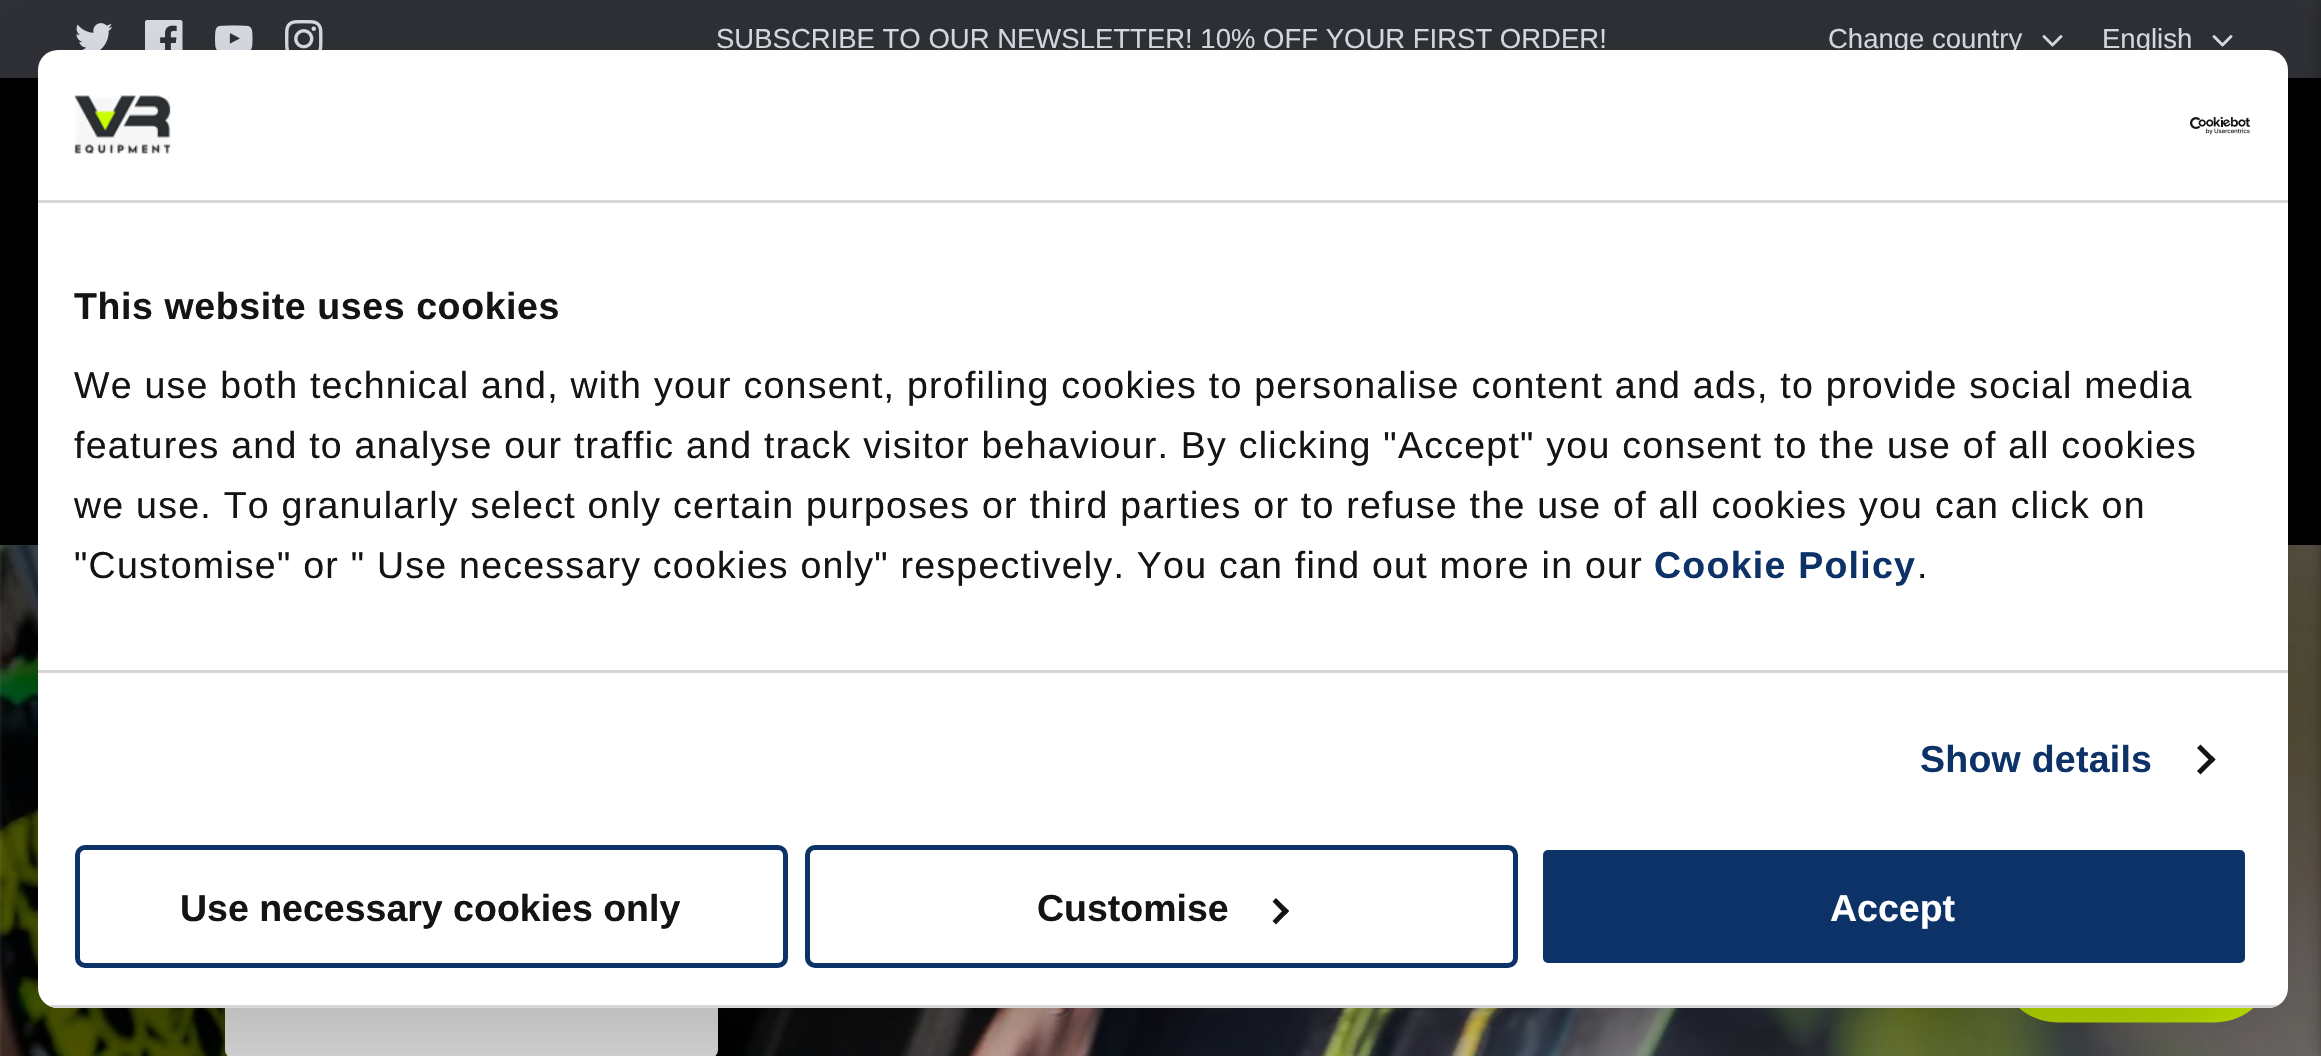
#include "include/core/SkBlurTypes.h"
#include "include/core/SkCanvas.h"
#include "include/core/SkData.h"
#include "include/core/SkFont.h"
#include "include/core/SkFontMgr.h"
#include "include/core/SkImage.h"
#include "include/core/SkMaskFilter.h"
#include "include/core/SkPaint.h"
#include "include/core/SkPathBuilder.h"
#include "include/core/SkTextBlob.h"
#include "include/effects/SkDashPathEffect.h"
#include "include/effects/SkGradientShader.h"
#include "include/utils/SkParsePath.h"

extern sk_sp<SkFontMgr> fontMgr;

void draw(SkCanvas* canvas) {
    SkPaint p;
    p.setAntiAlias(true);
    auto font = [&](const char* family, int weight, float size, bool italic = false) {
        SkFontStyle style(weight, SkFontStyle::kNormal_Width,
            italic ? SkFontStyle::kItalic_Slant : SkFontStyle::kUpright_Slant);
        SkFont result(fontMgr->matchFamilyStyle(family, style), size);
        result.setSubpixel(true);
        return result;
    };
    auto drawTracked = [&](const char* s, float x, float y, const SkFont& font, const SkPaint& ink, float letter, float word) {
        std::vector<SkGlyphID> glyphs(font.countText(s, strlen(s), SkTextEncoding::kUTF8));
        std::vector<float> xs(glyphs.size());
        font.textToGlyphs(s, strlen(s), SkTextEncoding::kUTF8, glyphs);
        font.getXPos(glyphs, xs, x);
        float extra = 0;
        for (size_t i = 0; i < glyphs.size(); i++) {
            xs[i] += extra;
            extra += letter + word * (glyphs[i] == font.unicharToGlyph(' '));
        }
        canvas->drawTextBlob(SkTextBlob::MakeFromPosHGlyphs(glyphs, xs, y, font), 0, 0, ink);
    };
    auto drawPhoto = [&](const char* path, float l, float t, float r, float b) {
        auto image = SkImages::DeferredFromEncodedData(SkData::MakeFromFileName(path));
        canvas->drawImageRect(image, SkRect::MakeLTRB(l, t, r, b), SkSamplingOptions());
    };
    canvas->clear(0xFFFFFFFF);
    p.setColor(0xFF2F3136);
    canvas->drawRect(SkRect::MakeLTRB(0, 0, 2321, 78), p);
    drawPhoto("media/1.png", 76, 23, 113, 50);
    drawPhoto("media/2.png", 145, 20, 183, 50);
    drawPhoto("media/3.png", 215, 25, 253, 50);
    drawPhoto("media/4.png", 285, 20, 323, 50);
    auto font1 = font("Liberation Sans", 400, 27.5f);
    p.setColor(0xFFDCDFE7);
    canvas->drawString("SUBSCRIBE TO OUR NEWSLETTER! 10% OFF YOUR FIRST ORDER!", 716, 48, font1, p);
    canvas->drawString("Change country", 1828, 48, font1, p);
    p.setStyle(SkPaint::kStroke_Style);
    p.setStrokeWidth(2.9f);
    p.setStrokeCap(SkPaint::kRound_Cap);
    p.setStrokeJoin(SkPaint::kRound_Join);
    canvas->drawPath(SkPathBuilder().moveTo(2044, 36.5f).lineTo(2052.5f, 45).lineTo(2061, 36.5f).detach(), p);
    p.setStyle(SkPaint::kFill_Style);
    canvas->drawString("English", 2102, 48, font1, p);
    p.setStyle(SkPaint::kStroke_Style);
    canvas->drawPath(SkPathBuilder().moveTo(2214, 36.5f).lineTo(2222.5f, 45).lineTo(2231, 36.5f).detach(), p);
    p.setStyle(SkPaint::kFill_Style);
    p.setColor(0xFF000000);
    canvas->drawRect(SkRect::MakeLTRB(0, 78, 2321, 545), p);
    drawPhoto("media/7.png", 0, 545, 2321, 1056);
    p.setColor(0x80000000);
    p.setMaskFilter(SkMaskFilter::MakeBlur(kNormal_SkBlurStyle, 9));
    canvas->drawRect(SkRect::MakeLTRB(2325, 0, 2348, 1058), p);
    p.setMaskFilter(nullptr);
    p.setColor(0xFFFFFFFF);
    canvas->drawRoundRect(SkRect::MakeLTRB(225, 953, 718, 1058), 8, 8, p);
    drawPhoto("media/8.png", 2019, 1008, 2253, 1023);
    p.setColor(0x4D000000);
    p.setMaskFilter(SkMaskFilter::MakeBlur(kNormal_SkBlurStyle, 85));
    canvas->drawRoundRect(SkRect::MakeLTRB(38, 130, 2288, 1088), 20, 20, p);
    p.setMaskFilter(nullptr);
    p.setColor(0xFFFFFFFF);
    canvas->drawRoundRect(SkRect::MakeLTRB(38, 50, 2288, 1008), 20, 20, p);
    p.setColor(0xFFD6D6D6);
    canvas->drawRect(SkRect::MakeLTRB(38, 200, 2288, 203), p);
    drawPhoto("media/5.png", 74, 95, 171, 154);
    drawPhoto("media/6.png", 2190, 116, 2250, 135);
    canvas->drawRect(SkRect::MakeLTRB(38, 670, 2288, 673), p);
    auto font2 = font("Liberation Sans", 700, 37.5f);
    p.setColor(0xFF141414);
    drawTracked("This website uses cookies", 74, 319, font2, p, 0.6f, 0);
    auto font3 = font("Liberation Sans", 400, 37.5f);
    {
        const struct { const char* s; float x, y; } items[] = {
            {"We use both technical and, with your consent, profiling cookies to personalise content and ads, to provide social media", 74, 398},
            {"features and to analyse our traffic and track visitor behaviour. By clicking \"Accept\" you consent to the use of all cookies", 74, 458},
            {"we use. To granularly select only certain purposes or third parties or to refuse the use of all cookies you can click on", 74, 518},
            {"\"Customise\" or \" Use necessary cookies only\" respectively. You can find out more in our", 74, 578},
        };
        for (auto [s, x, y] : items) {
            drawTracked(s, x, y, font3, p, 1.25f, 0);
        }
    }
    p.setColor(0xFF0C3268);
    drawTracked("Cookie Policy", 1654, 578, font2, p, 1.25f, 0);
    p.setColor(0xFF141414);
    drawTracked(".", 1917, 578, font3, p, 1.25f, 0);
    p.setColor(0xFF0C3268);
    drawTracked("Show details", 1920, 772, font2, p, 0.25f, 0);
    p.setColor(0xFF141414);
    canvas->drawPath(SkPathBuilder().moveTo(2200.5f, 744.5f).lineTo(2215.5f, 759.5f).lineTo(2212, 763).lineTo(2197, 748).close().detach(), p);
    canvas->drawPath(SkPathBuilder().moveTo(2212, 756).lineTo(2215.5f, 759.5f).lineTo(2200.5f, 774.5f).lineTo(2197, 771).close().detach(), p);
    canvas->save();
    canvas->clipPath(SkPathBuilder().moveTo(58, 50).lineTo(2268, 50).cubicTo(2279, 50, 2288, 59, 2288, 70).lineTo(2288, 988).cubicTo(2288, 999, 2279, 1008, 2268, 1008).lineTo(58, 1008).cubicTo(47, 1008, 38, 999, 38, 988).lineTo(38, 70).cubicTo(38, 59, 47, 50, 58, 50).close().detach(), true);
    p.setColor(0xFFD6D6D6);
    canvas->drawRect(SkRect::MakeLTRB(47, 1005, 2279, 1008), p);
    canvas->restore();
    p.setStyle(SkPaint::kStroke_Style);
    p.setStrokeWidth(5);
    p.setStrokeCap(SkPaint::kButt_Cap);
    p.setStrokeJoin(SkPaint::kMiter_Join);
    p.setColor(0xFF0C3268);
    canvas->drawRoundRect(SkRect::MakeLTRB(77.5f, 847.5f, 785.5f, 965.5f), 7.5f, 7.5f, p);
    p.setStyle(SkPaint::kFill_Style);
    p.setColor(0xFF141414);
    canvas->drawString("Use necessary cookies only", 180, 921, font2, p);
    p.setStyle(SkPaint::kStroke_Style);
    p.setColor(0xFF0C3268);
    canvas->drawRoundRect(SkRect::MakeLTRB(807.5f, 847.5f, 1515.5f, 965.5f), 7.5f, 7.5f, p);
    p.setStyle(SkPaint::kFill_Style);
    p.setColor(0xFF141414);
    canvas->drawString("Customise", 1037, 921, font2, p);
    canvas->drawPath(SkPathBuilder().moveTo(1276, 898).lineTo(1289, 911).lineTo(1285.5f, 915).lineTo(1272.5f, 901.5f).close().detach(), p);
    canvas->drawPath(SkPathBuilder().moveTo(1285.5f, 907.5f).lineTo(1289, 911).lineTo(1276, 924.5f).lineTo(1272.5f, 921).close().detach(), p);
    p.setColor(0xFF0C3268);
    canvas->drawRoundRect(SkRect::MakeLTRB(1540.5f, 847.5f, 2247.5f, 965.5f), 7.5f, 7.5f, p);
    p.setStyle(SkPaint::kStroke_Style);
    p.setColor(0xFFFFFFFF);
    canvas->drawRoundRect(SkRect::MakeLTRB(1540.5f, 847.5f, 2247.5f, 965.5f), 7.5f, 7.5f, p);
    p.setStyle(SkPaint::kFill_Style);
    canvas->drawString("Accept", 1830, 921, font2, p);
}
